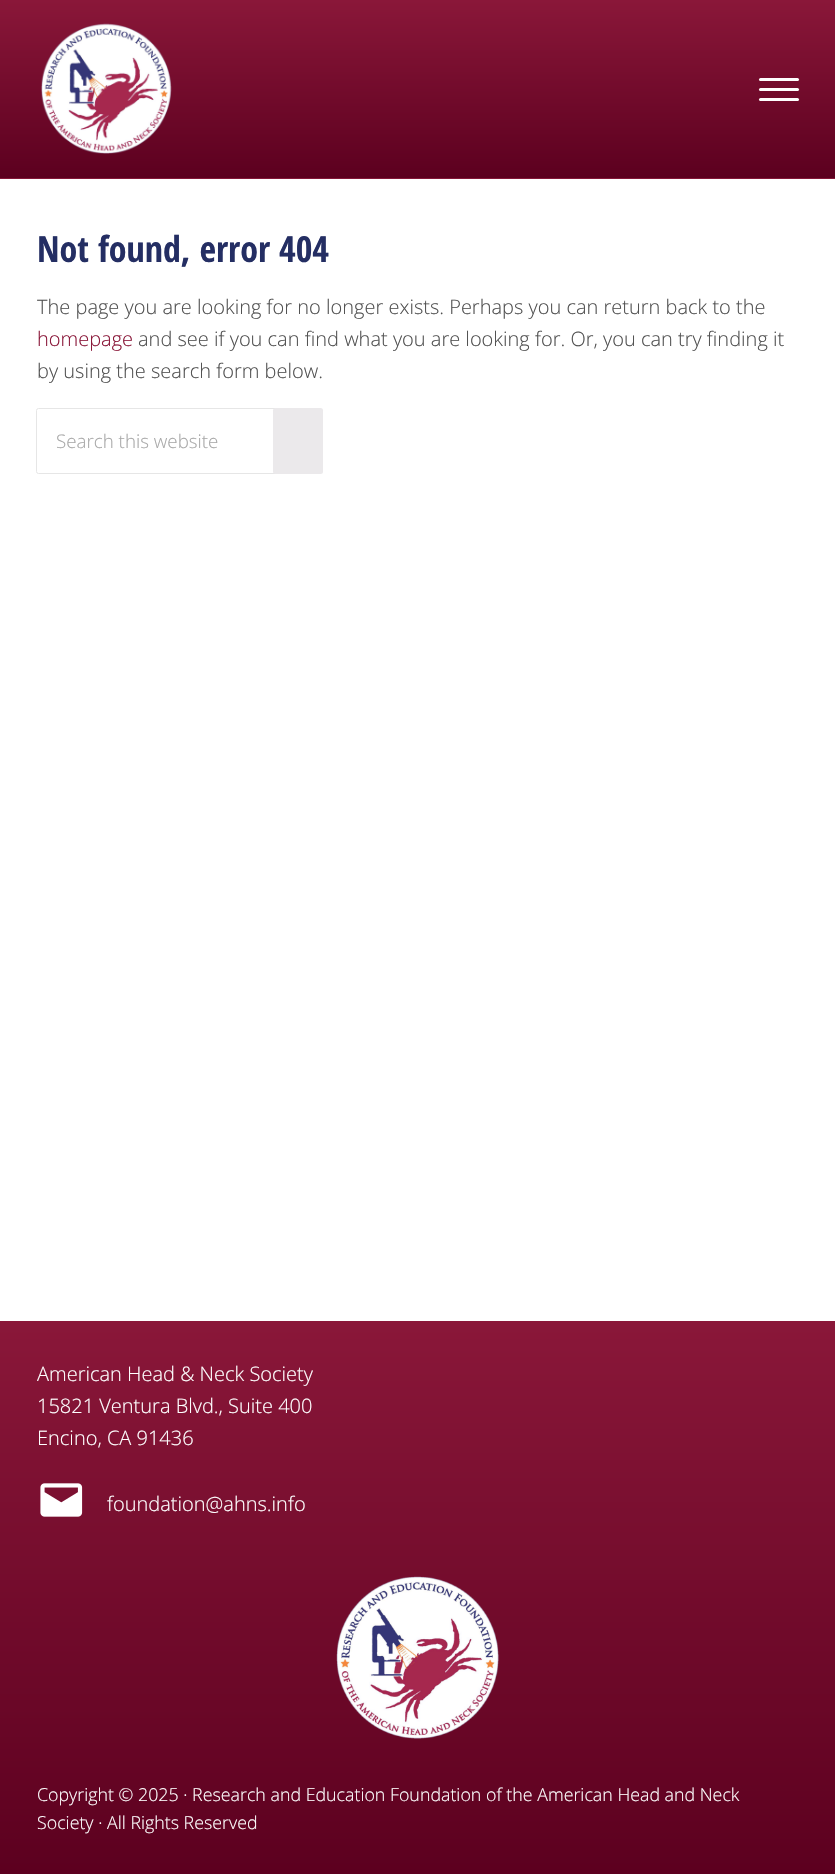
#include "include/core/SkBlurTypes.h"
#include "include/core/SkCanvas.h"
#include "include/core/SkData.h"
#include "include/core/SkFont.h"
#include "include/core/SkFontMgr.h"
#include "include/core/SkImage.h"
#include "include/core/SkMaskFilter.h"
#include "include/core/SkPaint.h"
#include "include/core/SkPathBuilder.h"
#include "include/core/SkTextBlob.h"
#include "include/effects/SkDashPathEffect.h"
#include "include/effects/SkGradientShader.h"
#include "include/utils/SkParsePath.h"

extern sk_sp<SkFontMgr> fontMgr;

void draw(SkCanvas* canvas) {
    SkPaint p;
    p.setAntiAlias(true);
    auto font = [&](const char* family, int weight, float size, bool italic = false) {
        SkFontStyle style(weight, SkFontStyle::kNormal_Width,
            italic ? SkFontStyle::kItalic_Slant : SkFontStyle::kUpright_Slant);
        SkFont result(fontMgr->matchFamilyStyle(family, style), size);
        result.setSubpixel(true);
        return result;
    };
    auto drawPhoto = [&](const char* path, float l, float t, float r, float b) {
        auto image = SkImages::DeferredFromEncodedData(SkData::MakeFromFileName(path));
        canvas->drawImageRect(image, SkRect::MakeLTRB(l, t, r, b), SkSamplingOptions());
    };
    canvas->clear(0xFFFFFFFF);
    {
        const SkColor colors[] = {0xFF5C001F, 0xFF8A1739};
        const float stops[] = {0, 1};
        const SkPoint ends[] = {{418, 178}, {418, 0}};
        p.setShader(SkGradientShader::MakeLinear(ends, colors, stops, 2, SkTileMode::kClamp));
        p.setAlpha(255);
    }
    canvas->drawRect(SkRect::MakeLTRB(0, 0, 835, 178), p);
    p.setShader(nullptr);
    p.setColor(0xFF841738);
    canvas->drawRect(SkRect::MakeLTRB(0, 178, 835, 179), p);
    drawPhoto("media/1.png", 41, 23, 172, 154);
    p.setColor(0xFFFFFFFF);
    canvas->drawRoundRect(SkRect::MakeLTRB(759, 88, 799, 91), 1.5f, 1.5f, p);
    canvas->drawRoundRect(SkRect::MakeLTRB(759, 78, 799, 81), 1.5f, 1.5f, p);
    canvas->drawRoundRect(SkRect::MakeLTRB(759, 98, 799, 101), 1.5f, 1.5f, p);
    auto font1 = font("Open Sans Condensed", 700, 36);
    p.setColor(0xFF242E63);
    canvas->drawString("Not found, error 404", 37, 262, font1, p);
    auto font2 = font("Open Sans", 300, 20);
    p.setColor(0xFF515151);
    canvas->drawString("The page you are looking for no longer exists. Perhaps you can return back to the", 37, 314, font2, p);
    p.setColor(0xFF8A1739);
    canvas->drawString("homepage", 37, 346, font2, p);
    p.setColor(0xFF515151);
    canvas->drawString("and see if you can find what you are looking for. Or, you can try finding it", 138, 346, font2, p);
    canvas->drawString("by using the search form below.", 37, 378, font2, p);
    p.setStyle(SkPaint::kStroke_Style);
    p.setStrokeWidth(1);
    p.setColor(0xFFE6E6E6);
    canvas->drawRoundRect(SkRect::MakeLTRB(36.5f, 408.5f, 298.5f, 473.5f), 2, 2, p);
    auto font3 = font("Open Sans", 300, 18.75f);
    p.setStyle(SkPaint::kFill_Style);
    p.setColor(0xFFA8A8A8);
    canvas->drawString("Search this website", 56, 448, font3, p);
    p.setColor(0xFFEBE9EB);
    canvas->drawRoundRect(SkRect::MakeLTRB(273, 408, 323, 474), 2.5f, 2.5f, p);
    {
        const SkColor colors[] = {0xFF5C001F, 0xFF8A1739};
        const float stops[] = {0, 1};
        const SkPoint ends[] = {{418, 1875}, {418, 1321}};
        p.setShader(SkGradientShader::MakeLinear(ends, colors, stops, 2, SkTileMode::kClamp));
        p.setAlpha(255);
    }
    canvas->drawRect(SkRect::MakeLTRB(0, 1321, 835, 1874), p);
    p.setShader(nullptr);
    p.setColor(0xFFFFFFFF);
    {
        const struct { const char* s; float x, y; } items[] = {
            {"American Head & Neck Society", 37, 1381},
            {"15821 Ventura Blvd., Suite 400", 37, 1413},
            {"Encino, CA 91436", 37, 1445},
        };
        for (auto [s, x, y] : items) {
            canvas->drawString(s, x, y, font2, p);
        }
    }
    drawPhoto("media/2.png", 40, 1483, 83, 1517);
    canvas->drawString("foundation@ahns.info", 107, 1511, font2, p);
    drawPhoto("media/3.png", 336, 1576, 499, 1739);
    auto font4 = font("Open Sans", 300, 17.8f);
    canvas->drawString("Copyright © 2025 · Research and Education Foundation of the American Head and Neck", 37, 1801, font4, p);
    canvas->drawString("Society · All Rights Reserved", 37, 1829, font4, p);
}
